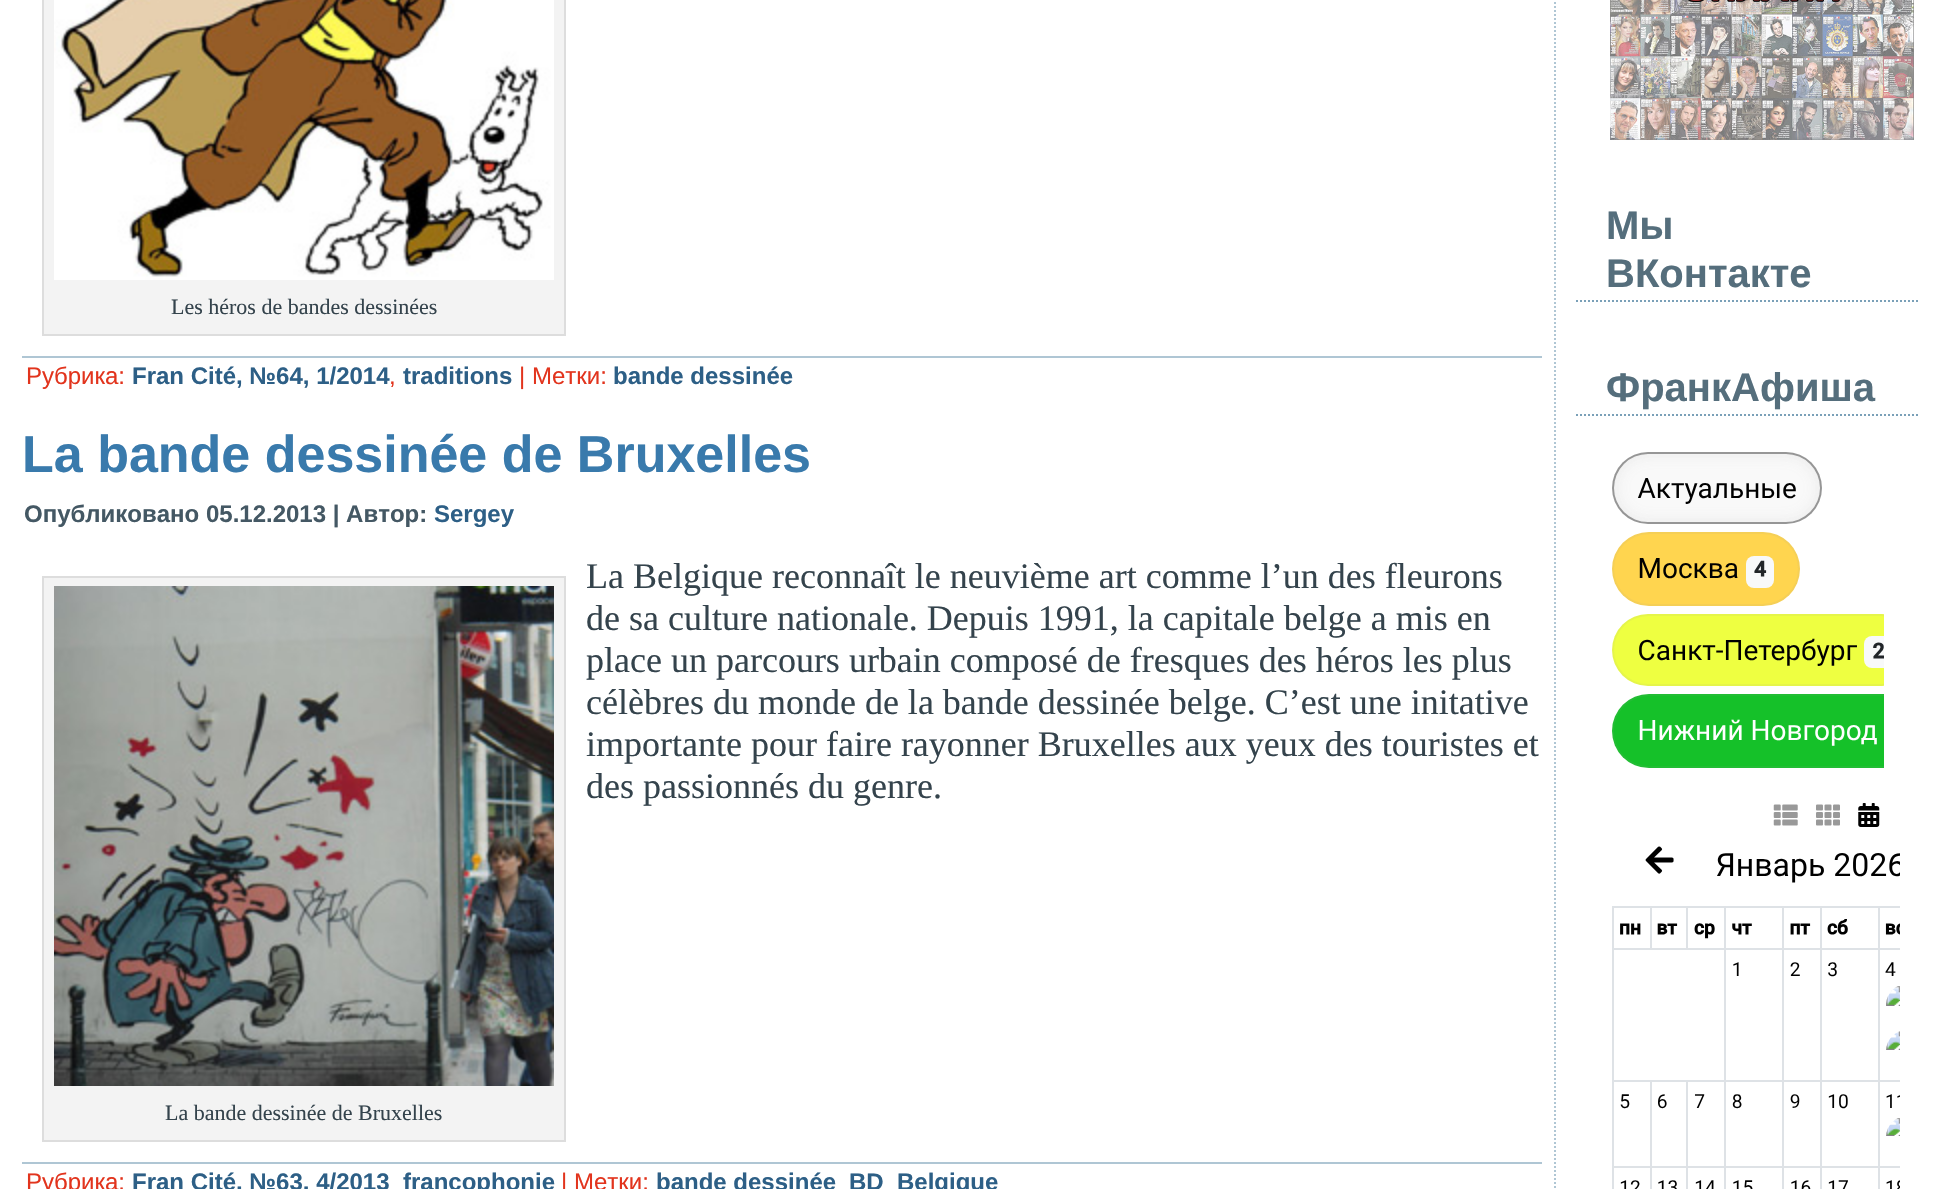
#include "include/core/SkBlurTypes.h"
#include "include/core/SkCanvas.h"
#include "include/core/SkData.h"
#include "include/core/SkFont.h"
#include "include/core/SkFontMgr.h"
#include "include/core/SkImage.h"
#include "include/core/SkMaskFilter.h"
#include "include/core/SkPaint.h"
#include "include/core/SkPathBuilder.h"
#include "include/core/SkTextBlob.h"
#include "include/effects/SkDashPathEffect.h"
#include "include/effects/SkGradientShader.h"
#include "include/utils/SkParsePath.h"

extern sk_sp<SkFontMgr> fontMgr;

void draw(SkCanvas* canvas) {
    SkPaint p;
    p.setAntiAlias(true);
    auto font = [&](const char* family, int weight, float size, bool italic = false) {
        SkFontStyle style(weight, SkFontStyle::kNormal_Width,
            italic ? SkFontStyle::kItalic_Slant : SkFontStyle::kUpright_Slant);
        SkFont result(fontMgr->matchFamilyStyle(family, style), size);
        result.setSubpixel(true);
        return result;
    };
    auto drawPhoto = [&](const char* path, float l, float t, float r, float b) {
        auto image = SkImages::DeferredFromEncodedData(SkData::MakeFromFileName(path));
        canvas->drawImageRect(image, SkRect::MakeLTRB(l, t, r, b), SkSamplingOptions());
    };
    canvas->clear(0xFFFFFFFF);
    p.setColor(0xFFF3F3F3);
    canvas->drawRect(SkRect::MakeLTRB(43, -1, 565, 335), p);
    p.setStyle(SkPaint::kStroke_Style);
    p.setStrokeWidth(2);
    p.setColor(0xFFDDDDDD);
    canvas->drawRect(SkRect::MakeLTRB(43, -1, 565, 335), p);
    drawPhoto("media/1.png", 54, 0, 554, 280);
    auto font1 = font("Liberation Serif", 400, 22);
    p.setStyle(SkPaint::kFill_Style);
    p.setColor(0xFF34434C);
    canvas->drawString("Les héros de bandes dessinées", 171, 314, font1, p);
    p.setColor(0xFFAFC6D4);
    canvas->drawRect(SkRect::MakeLTRB(22, 356, 1542, 358), p);
    auto font2 = font("Liberation Sans", 400, 24);
    p.setColor(0xFFE2341D);
    canvas->drawString("Рубрика:", 26, 384, font2, p);
    auto font3 = font("Liberation Sans", 700, 24);
    p.setColor(0xFF2D5F86);
    canvas->drawString("Fran Cité, №64, 1/2014", 132, 384, font3, p);
    p.setColor(0xFFE2341D);
    canvas->drawString(",", 389, 384, font2, p);
    p.setColor(0xFF2D5F86);
    canvas->drawString("traditions", 403, 384, font3, p);
    p.setColor(0xFFE2341D);
    canvas->drawString("| Метки:", 519, 384, font2, p);
    p.setColor(0xFF2D5F86);
    canvas->drawString("bande dessinée", 613, 384, font3, p);
    auto font4 = font("Liberation Sans", 700, 52);
    p.setColor(0xFF397AAC);
    canvas->drawString("La bande dessinée de Bruxelles", 22, 472, font4, p);
    p.setColor(0xFF445864);
    canvas->drawString("Опубликовано 05.12.2013 | Автор:", 24, 522, font3, p);
    p.setColor(0xFF2D5F86);
    canvas->drawString("Sergey", 434, 522, font3, p);
    auto font5 = font("Liberation Serif", 400, 36);
    p.setColor(0xFF34434C);
    {
        const struct { const char* s; float x, y; } items[] = {
            {"La Belgique reconnaît le neuvième art comme l’un des fleurons", 586, 588},
            {"de sa culture nationale. Depuis 1991, la capitale belge a mis en", 586, 630},
            {"place un parcours urbain composé de fresques des héros les plus", 586, 672},
            {"célèbres du monde de la bande dessinée belge. C’est une initative", 586, 714},
            {"importante pour faire rayonner Bruxelles aux yeux des touristes et", 586, 756},
            {"des passionnés du genre.", 586, 798},
        };
        for (auto [s, x, y] : items) {
            canvas->drawString(s, x, y, font5, p);
        }
    }
    p.setColor(0xFFF3F3F3);
    canvas->drawRect(SkRect::MakeLTRB(43, 577, 565, 1141), p);
    p.setStyle(SkPaint::kStroke_Style);
    p.setColor(0xFFDDDDDD);
    canvas->drawRect(SkRect::MakeLTRB(43, 577, 565, 1141), p);
    drawPhoto("media/2.png", 54, 586, 554, 1086);
    p.setStyle(SkPaint::kFill_Style);
    p.setColor(0xFF34434C);
    canvas->drawString("La bande dessinée de Bruxelles", 165, 1120, font1, p);
    p.setColor(0xFFAFC6D4);
    canvas->drawRect(SkRect::MakeLTRB(22, 1162, 1542, 1164), p);
    p.setColor(0xFFE2341D);
    canvas->drawString("Рубрика:", 26, 1190, font2, p);
    p.setColor(0xFF2D5F86);
    canvas->drawString("Fran Cité, №63, 4/2013", 132, 1190, font3, p);
    canvas->drawString("francophonie", 403, 1190, font3, p);
    p.setColor(0xFFE2341D);
    canvas->drawString("| Метки:", 561, 1190, font2, p);
    p.setColor(0xFF2D5F86);
    {
        const struct { const char* s; float x, y; } items[] = {
            {"bande dessinée", 656, 1190},
            {"BD", 849, 1190},
            {"Belgique", 897, 1190},
        };
        for (auto [s, x, y] : items) {
            canvas->drawString(s, x, y, font3, p);
        }
    }
    p.setStyle(SkPaint::kStroke_Style);
    p.setColor(0xFFAFC6D4);
    p.setPathEffect(SkDashPathEffect::Make({{2, 2}}, 0));
    canvas->drawPath(SkPathBuilder().moveTo(1555, -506).lineTo(1555, 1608).detach(), p);
    p.setPathEffect(nullptr);
    drawPhoto("media/3.png", 1610, 0, 1914, 140);
    p.setColor(0xFF7AA0B8);
    p.setPathEffect(SkDashPathEffect::Make({{2, 2}}, 0));
    canvas->drawPath(SkPathBuilder().moveTo(1576, 301).lineTo(1920, 301).detach(), p);
    p.setPathEffect(nullptr);
    auto font6 = font("Liberation Sans", 700, 40);
    p.setStyle(SkPaint::kFill_Style);
    p.setColor(0xFF556E7C);
    canvas->drawString("Мы", 1606, 239, font6, p);
    canvas->drawString("ВКонтакте", 1606, 287, font6, p);
    p.setStyle(SkPaint::kStroke_Style);
    p.setColor(0xFF7AA0B8);
    p.setPathEffect(SkDashPathEffect::Make({{2, 2}}, 0));
    canvas->drawPath(SkPathBuilder().moveTo(1576, 415).lineTo(1920, 415).detach(), p);
    p.setPathEffect(nullptr);
    p.setStyle(SkPaint::kFill_Style);
    p.setColor(0xFF556E7C);
    canvas->drawString("ФранкАфиша", 1606, 401, font6, p);
    drawPhoto("media/4.png", 1612, 452, 1900, 1189);
}
